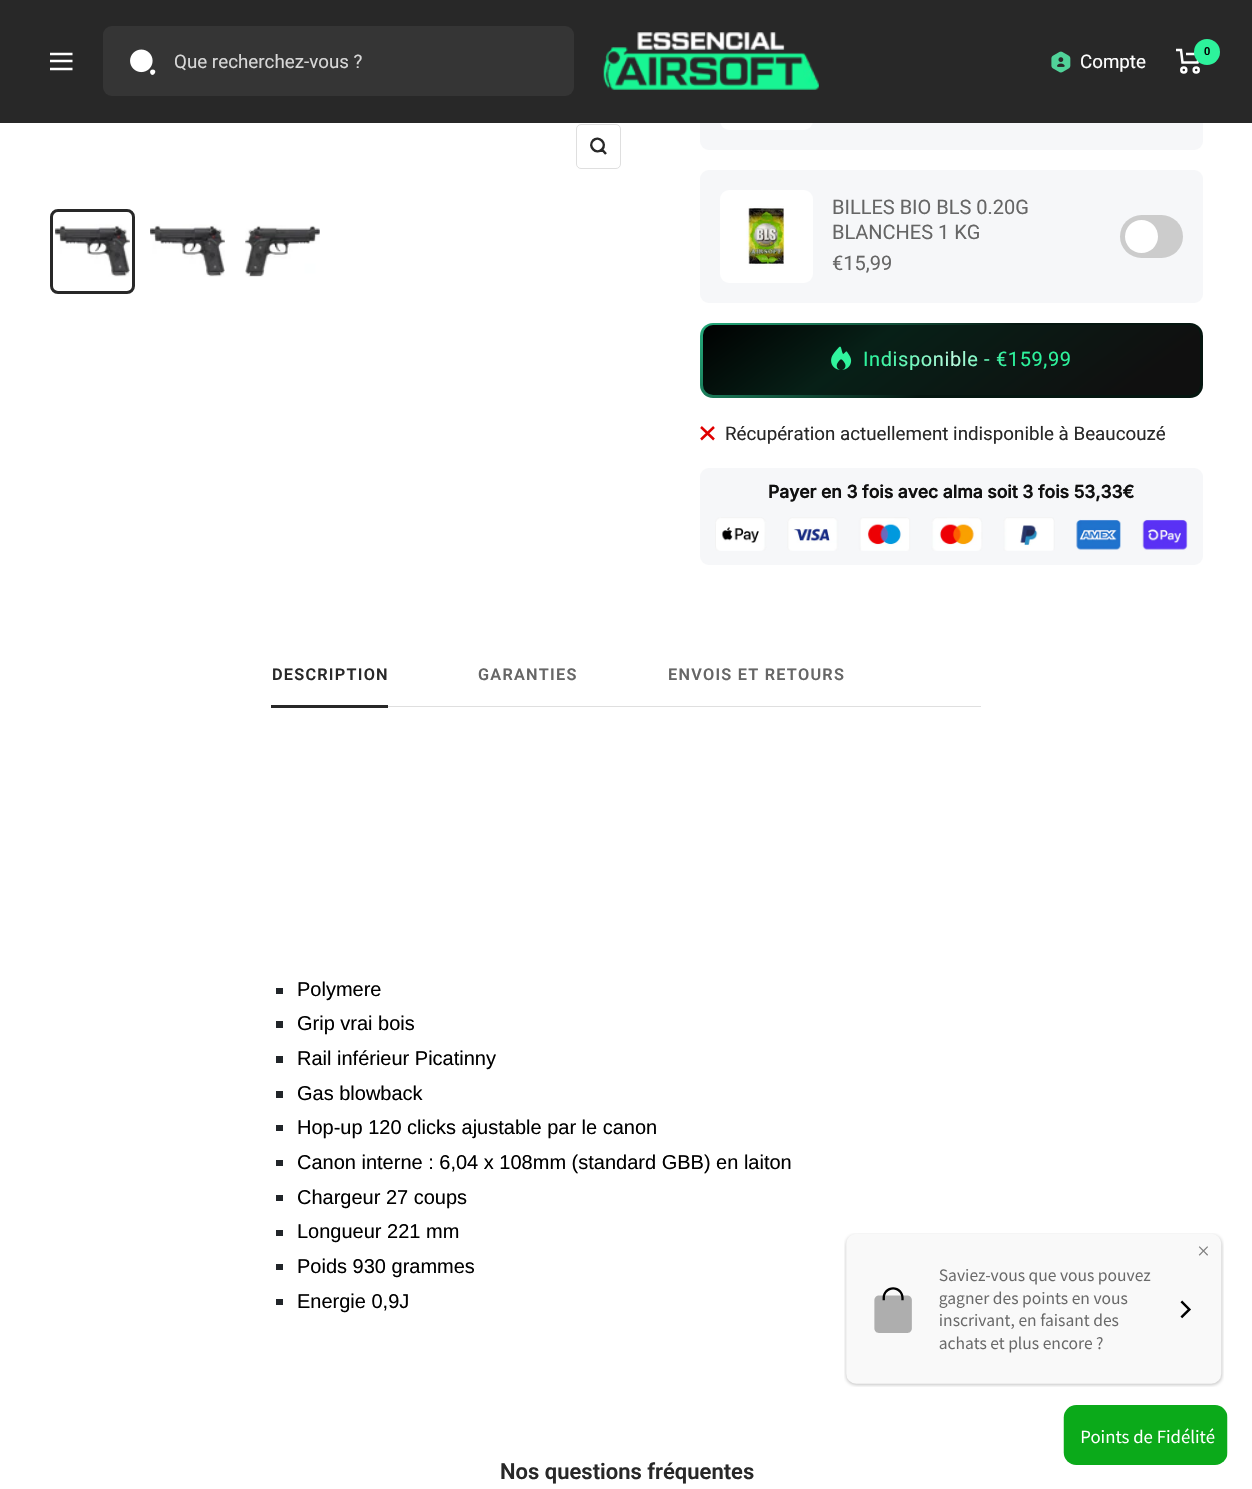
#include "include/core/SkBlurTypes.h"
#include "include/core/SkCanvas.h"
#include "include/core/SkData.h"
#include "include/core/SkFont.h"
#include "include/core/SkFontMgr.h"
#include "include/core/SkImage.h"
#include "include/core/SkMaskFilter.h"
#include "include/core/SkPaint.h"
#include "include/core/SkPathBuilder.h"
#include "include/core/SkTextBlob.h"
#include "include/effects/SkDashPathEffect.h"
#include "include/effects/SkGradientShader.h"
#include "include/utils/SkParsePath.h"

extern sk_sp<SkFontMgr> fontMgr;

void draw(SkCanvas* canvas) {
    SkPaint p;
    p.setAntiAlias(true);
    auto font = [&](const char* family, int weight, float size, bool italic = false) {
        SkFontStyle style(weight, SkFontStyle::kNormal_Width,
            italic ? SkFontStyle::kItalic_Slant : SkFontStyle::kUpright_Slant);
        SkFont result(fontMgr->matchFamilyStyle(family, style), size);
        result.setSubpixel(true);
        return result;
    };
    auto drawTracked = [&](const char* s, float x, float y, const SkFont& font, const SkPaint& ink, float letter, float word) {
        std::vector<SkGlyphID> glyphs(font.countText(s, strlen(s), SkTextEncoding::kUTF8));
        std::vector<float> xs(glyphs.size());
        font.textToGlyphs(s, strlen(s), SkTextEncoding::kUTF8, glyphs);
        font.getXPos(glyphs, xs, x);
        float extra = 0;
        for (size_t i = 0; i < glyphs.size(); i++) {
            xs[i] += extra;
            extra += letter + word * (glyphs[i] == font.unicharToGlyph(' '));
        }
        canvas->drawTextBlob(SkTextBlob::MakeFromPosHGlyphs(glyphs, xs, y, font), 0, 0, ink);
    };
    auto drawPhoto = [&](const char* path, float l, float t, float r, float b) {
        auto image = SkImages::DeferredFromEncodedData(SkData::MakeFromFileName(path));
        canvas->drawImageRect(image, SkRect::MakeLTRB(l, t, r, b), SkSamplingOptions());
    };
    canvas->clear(0xFFFFFFFF);
    p.setColor(0xFFF6F7F9);
    canvas->drawRoundRect(SkRect::MakeLTRB(700, 18, 1203, 150), 9, 9, p);
    p.setColor(0xFFFFFFFF);
    canvas->drawRoundRect(SkRect::MakeLTRB(720, 38, 813, 130), 9, 9, p);
    p.setColor(0xFF282828);
    canvas->drawRect(SkRect::MakeLTRB(0, 0, 1252, 123), p);
    p.setStyle(SkPaint::kStroke_Style);
    p.setStrokeWidth(2.5f);
    p.setColor(0xFFFFFFFF);
    canvas->drawPath(SkPathBuilder().moveTo(50, 54).lineTo(72.5f, 54).moveTo(50, 69).lineTo(72.5f, 69).close().moveTo(50, 61).lineTo(72.5f, 61).close().detach(), p);
    p.setStyle(SkPaint::kFill_Style);
    p.setColor(0xFF353535);
    canvas->drawRoundRect(SkRect::MakeLTRB(103, 26, 574, 96), 9, 9, p);
    drawPhoto("media/1.png", 130, 49, 156, 75);
    auto font1 = font("Roboto", 400, 18.75f);
    p.setColor(0xFFD7D7D7);
    canvas->drawString("Que recherchez-vous ?", 174, 68, font1, p);
    drawPhoto("media/2.png", 603, 32, 819, 90);
    p.setStyle(SkPaint::kStroke_Style);
    p.setColor(0xFFFFFFFF);
    canvas->drawPath(SkPathBuilder().moveTo(1176, 50).lineTo(1181, 50).lineTo(1182.5f, 62.5f).lineTo(1197.5f, 62.5f).lineTo(1200, 54).lineTo(1186, 54).detach(), p);
    canvas->drawCircle(1183.8f, 70, 2.5f, p);
    canvas->drawCircle(1196.2f, 70, 2.5f, p);
    p.setStyle(SkPaint::kFill_Style);
    p.setColor(0xFF2DF39C);
    canvas->drawCircle(1207, 52, 13, p);
    auto font2 = font("Roboto", 600, 11);
    p.setColor(0xFF000000);
    canvas->drawString("0", 1204, 55, font2, p);
    drawPhoto("media/3.png", 1051, 51, 1071, 73);
    p.setColor(0xFFFFFFFF);
    canvas->drawString("Compte", 1080, 68, font1, p);
    p.setStyle(SkPaint::kStroke_Style);
    p.setStrokeWidth(1);
    p.setColor(0xFFDFDFDF);
    canvas->drawRoundRect(SkRect::MakeLTRB(576.5f, 124.5f, 620.5f, 168.5f), 4.5f, 4.5f, p);
    p.setStrokeWidth(2.5f);
    p.setColor(0xFF282828);
    canvas->drawPath(SkPathBuilder().moveTo(602, 149.5f).cubicTo(607.5f, 143.5f, 599, 135, 593, 140.5f).cubicTo(587.5f, 146.5f, 596, 155, 602, 149.5f).close().moveTo(602, 149.5f).lineTo(606, 154).detach(), p);
    drawPhoto("media/4.png", 55, 224, 130, 277);
    p.setStrokeWidth(3);
    canvas->drawRoundRect(SkRect::MakeLTRB(51.5f, 210.5f, 133.5f, 292.5f), 6.5f, 6.5f, p);
    drawPhoto("media/4.png", 150, 224, 225, 277);
    drawPhoto("media/5.png", 245, 225, 320, 277);
    p.setStyle(SkPaint::kFill_Style);
    p.setColor(0xFFF6F7F9);
    canvas->drawRoundRect(SkRect::MakeLTRB(700, 170, 1203, 303), 9, 9, p);
    p.setColor(0xFFFFFFFF);
    canvas->drawRoundRect(SkRect::MakeLTRB(720, 190, 813, 283), 9, 9, p);
    drawPhoto("media/6.png", 746, 206, 785, 267);
    auto font3 = font("Roboto", 400, 20);
    p.setColor(0xFF666666);
    {
        const struct { const char* s; float x, y; } items[] = {
            {"BILLES BIO BLS 0.20G", 832, 214},
            {"BLANCHES 1 KG", 832, 239},
            {"€15,99", 832, 270},
        };
        for (auto [s, x, y] : items) {
            canvas->drawString(s, x, y, font3, p);
        }
    }
    p.setColor(0xFFCCCCCC);
    canvas->drawRoundRect(SkRect::MakeLTRB(1120, 215, 1183, 258), 21.5f, 21.5f, p);
    p.setColor(0xFFFFFFFF);
    canvas->drawCircle(1141.5f, 236.5f, 16.5f, p);
    {
        const SkColor colors[] = {0xFF25AD7D, 0xFF051610};
        const float stops[] = {0, 0.53f};
        const SkPoint ends[] = {{847, 216}, {1056, 504}};
        p.setShader(SkGradientShader::MakeLinear(ends, colors, stops, 2, SkTileMode::kClamp));
        p.setAlpha(255);
    }
    canvas->drawRoundRect(SkRect::MakeLTRB(700, 323, 1203, 398), 13, 13, p);
    {
        const SkColor colors[] = {0xFF000000, 0xFF072017, 0xFF101010};
        const float stops[] = {0, 0.33f, 0.86f};
        const SkPoint ends[] = {{847, 216}, {1056, 504}};
        p.setShader(SkGradientShader::MakeLinear(ends, colors, stops, 3, SkTileMode::kClamp));
        p.setAlpha(255);
    }
    canvas->drawRoundRect(SkRect::MakeLTRB(703, 325, 1200, 395), 10, 10, p);
    drawPhoto("media/7.png", 831, 346, 852, 370);
    {
        const SkColor colors[] = {0xFF2DF39C, 0xFFBBFBDF, 0xFF2DF39C};
        const float stops[] = {0.19f, 0.51f, 0.72f};
        const SkPoint ends[] = {{825, 357}, {1078, 362}};
        p.setShader(SkGradientShader::MakeLinear(ends, colors, stops, 3, SkTileMode::kClamp));
        p.setAlpha(255);
    }
    drawTracked("Indisponible -", 863, 366, font3, p, 0.6f, 0);
    drawTracked("€159,99", 996, 366, font3, p, 0.6f, 0);
    p.setStyle(SkPaint::kStroke_Style);
    p.setStrokeWidth(2.5f);
    p.setShader(nullptr);
    p.setColor(0xFFE00000);
    canvas->drawPath(SkPathBuilder().moveTo(701, 427).lineTo(714, 439.5f).moveTo(701, 439.5f).lineTo(714, 427).detach(), p);
    p.setStyle(SkPaint::kFill_Style);
    p.setColor(0xFF282828);
    canvas->drawString("Récupération actuellement indisponible à Beaucouzé", 725, 440, font1, p);
    p.setColor(0xFFF6F7F9);
    canvas->drawRoundRect(SkRect::MakeLTRB(700, 468, 1203, 565), 9, 9, p);
    auto font4 = font("Inter", 700, 17.5f);
    p.setColor(0xFF101010);
    canvas->drawString("Payer en 3 fois avec alma soit 3 fois 53,33€", 768, 498, font4, p);
    drawPhoto("media/8.png", 715, 517, 1188, 551);
    p.setColor(0xFFDFDFDF);
    canvas->drawRect(SkRect::MakeLTRB(388, 706, 981, 707), p);
    auto font5 = font("Roboto", 600, 16.25f);
    p.setColor(0xFF282828);
    drawTracked("DESCRIPTION", 272, 680, font5, p, 1.25f, 0);
    p.setColor(0xFF666666);
    drawTracked("GARANTIES", 478, 680, font5, p, 1.25f, 0);
    drawTracked("ENVOIS ET RETOURS", 668, 680, font5, p, 1.25f, 0);
    p.setColor(0xFF282828);
    canvas->drawRect(SkRect::MakeLTRB(271, 705, 388, 708), p);
    p.setColor(0xFF212529);
    canvas->drawRect(SkRect::MakeLTRB(276, 988, 283, 994), p);
    auto font6 = font("Liberation Sans", 400, 20);
    p.setColor(0xFF000000);
    canvas->drawString("Polymere", 297, 996, font6, p);
    p.setColor(0xFF212529);
    canvas->drawRect(SkRect::MakeLTRB(276, 1021, 283, 1028), p);
    p.setColor(0xFF000000);
    canvas->drawString("Grip vrai bois", 297, 1030, font6, p);
    p.setColor(0xFF212529);
    canvas->drawRect(SkRect::MakeLTRB(276, 1056, 283, 1063), p);
    p.setColor(0xFF000000);
    canvas->drawString("Rail inférieur Picatinny", 297, 1065, font6, p);
    p.setColor(0xFF212529);
    canvas->drawRect(SkRect::MakeLTRB(276, 1091, 283, 1098), p);
    p.setColor(0xFF000000);
    canvas->drawString("Gas blowback", 297, 1100, font6, p);
    p.setColor(0xFF212529);
    canvas->drawRect(SkRect::MakeLTRB(276, 1125, 283, 1131), p);
    p.setColor(0xFF000000);
    canvas->drawString("Hop-up 120 clicks ajustable par le canon", 297, 1134, font6, p);
    p.setColor(0xFF212529);
    canvas->drawRect(SkRect::MakeLTRB(276, 1160, 283, 1166), p);
    p.setColor(0xFF000000);
    canvas->drawString("Canon interne : 6,04 x 108mm (standard GBB) en laiton", 297, 1169, font6, p);
    p.setColor(0xFF212529);
    canvas->drawRect(SkRect::MakeLTRB(276, 1195, 283, 1201), p);
    p.setColor(0xFF000000);
    canvas->drawString("Chargeur 27 coups", 297, 1204, font6, p);
    p.setColor(0xFF212529);
    canvas->drawRect(SkRect::MakeLTRB(276, 1230, 283, 1236), p);
    p.setColor(0xFF000000);
    canvas->drawString("Longueur 221 mm", 297, 1238, font6, p);
    p.setColor(0xFF212529);
    canvas->drawRect(SkRect::MakeLTRB(276, 1264, 283, 1270), p);
    p.setColor(0xFF000000);
    canvas->drawString("Poids 930 grammes", 297, 1273, font6, p);
    p.setColor(0xFF212529);
    canvas->drawRect(SkRect::MakeLTRB(276, 1299, 283, 1305), p);
    p.setColor(0xFF000000);
    canvas->drawString("Energie 0,9J", 297, 1308, font6, p);
    auto font7 = font("Roboto", 600, 22);
    p.setColor(0xFF282828);
    canvas->drawString("Nos questions fréquentes", 500, 1479, font7, p);
    drawPhoto("media/9.png", 844, 1233, 1224, 1387);
    drawPhoto("media/10.png", 1063, 1405, 1228, 1465);
}
